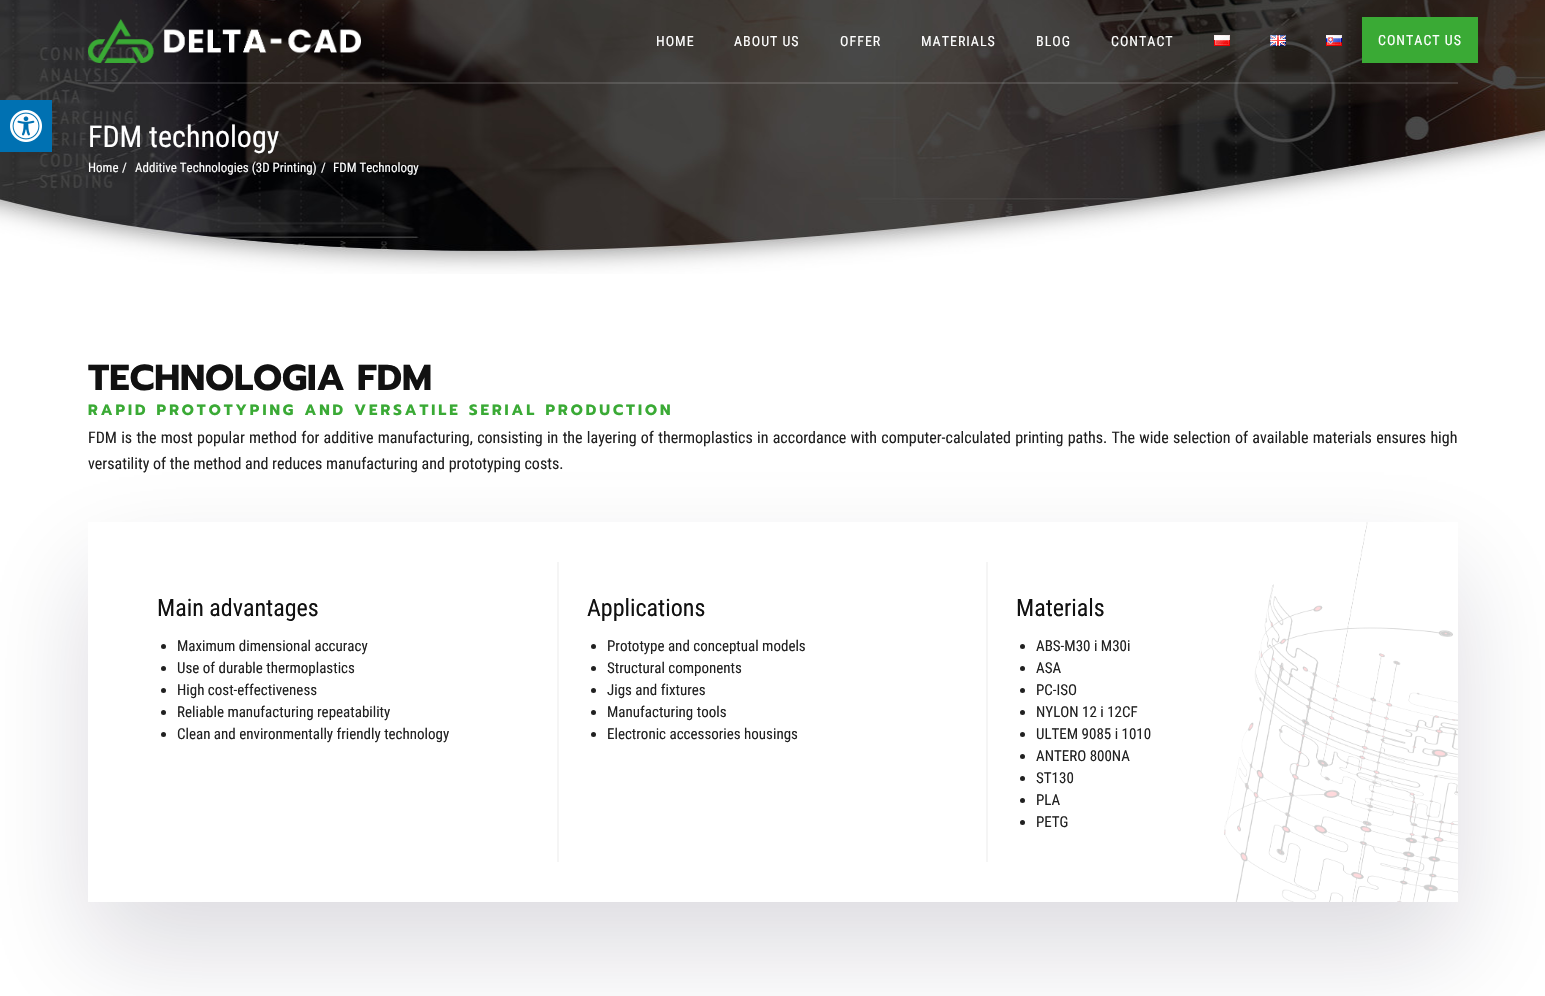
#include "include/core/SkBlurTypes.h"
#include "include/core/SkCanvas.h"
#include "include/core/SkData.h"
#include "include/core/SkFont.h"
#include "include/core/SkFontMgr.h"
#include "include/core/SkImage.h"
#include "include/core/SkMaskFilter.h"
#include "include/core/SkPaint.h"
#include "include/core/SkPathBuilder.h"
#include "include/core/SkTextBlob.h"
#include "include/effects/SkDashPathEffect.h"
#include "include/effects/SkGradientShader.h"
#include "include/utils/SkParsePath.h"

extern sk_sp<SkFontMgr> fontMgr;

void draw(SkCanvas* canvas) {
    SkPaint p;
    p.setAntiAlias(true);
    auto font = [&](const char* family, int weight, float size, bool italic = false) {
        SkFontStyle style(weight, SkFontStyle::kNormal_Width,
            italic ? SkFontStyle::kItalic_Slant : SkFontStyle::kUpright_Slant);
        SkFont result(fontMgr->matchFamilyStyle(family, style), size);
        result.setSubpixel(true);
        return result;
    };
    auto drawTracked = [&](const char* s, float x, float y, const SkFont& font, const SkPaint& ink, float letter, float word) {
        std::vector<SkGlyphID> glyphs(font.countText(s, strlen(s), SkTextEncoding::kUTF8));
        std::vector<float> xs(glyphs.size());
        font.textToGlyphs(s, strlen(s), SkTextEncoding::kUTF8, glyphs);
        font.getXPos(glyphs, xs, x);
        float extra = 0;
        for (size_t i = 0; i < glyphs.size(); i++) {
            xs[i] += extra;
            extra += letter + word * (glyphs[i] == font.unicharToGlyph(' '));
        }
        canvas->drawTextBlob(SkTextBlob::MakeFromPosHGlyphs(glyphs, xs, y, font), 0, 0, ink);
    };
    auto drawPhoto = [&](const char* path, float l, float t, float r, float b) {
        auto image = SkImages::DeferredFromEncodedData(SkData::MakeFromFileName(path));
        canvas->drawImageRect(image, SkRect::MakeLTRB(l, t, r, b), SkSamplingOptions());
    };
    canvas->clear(0xFFFFFFFF);
    drawPhoto("media/6.png", 0, 0, 1545, 274);
    p.setColor(0xFF0071B2);
    canvas->drawRect(SkRect::MakeLTRB(0, 100, 52, 152), p);
    drawPhoto("media/1.png", 10, 110, 42, 142);
    p.setColor(0x26E5E5E5);
    canvas->drawRect(SkRect::MakeLTRB(88, 82, 1458, 84), p);
    drawPhoto("media/2.png", 88, 19, 361, 63);
    auto font1 = font("Roboto Condensed", 400, 14);
    p.setColor(0xFFFFFFFF);
    {
        const struct { const char* s; float x, y; } items[] = {
            {"HOME", 656, 46},
            {"ABOUT US", 734, 46},
            {"OFFER", 840, 46},
            {"MATERIALS", 921, 46},
            {"BLOG", 1036, 46},
            {"CONTACT", 1111, 46},
        };
        for (auto [s, x, y] : items) {
            drawTracked(s, x, y, font1, p, 1, 0);
        }
    }
    drawPhoto("media/3.png", 1214, 35, 1230, 46);
    drawPhoto("media/4.png", 1270, 35, 1286, 46);
    drawPhoto("media/5.png", 1326, 35, 1342, 46);
    p.setColor(0xFF3AAA35);
    canvas->drawRect(SkRect::MakeLTRB(1362, 17, 1478, 63), p);
    p.setColor(0xFFFFFFFF);
    drawTracked("CONTACT US", 1378, 45, font1, p, 1, 0);
    auto font2 = font("Roboto Condensed", 400, 30);
    canvas->drawString("FDM technology", 88, 147, font2, p);
    auto font3 = font("Roboto Condensed", 400, 13);
    {
        const struct { const char* s; float x, y; } items[] = {
            {"Home", 88, 172},
            {"/", 122, 172},
            {"Additive Technologies (3D Printing)", 135, 172},
            {"/", 321, 172},
            {"FDM Technology", 333, 172},
        };
        for (auto [s, x, y] : items) {
            canvas->drawString(s, x, y, font3, p);
        }
    }
    auto font4 = font("Prompt", 700, 36);
    p.setColor(0xFF111111);
    canvas->drawString("TECHNOLOGIA FDM", 88, 390, font4, p);
    auto font5 = font("Prompt", 700, 15);
    p.setColor(0xFF3AAA35);
    drawTracked("RAPID PROTOTYPING AND VERSATILE SERIAL PRODUCTION", 88, 415, font5, p, 3, 0);
    canvas->save();
    canvas->clipPath(SkPathBuilder(SkPathFillType::kEvenOdd).moveTo(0, 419).lineTo(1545, 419).lineTo(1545, 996).lineTo(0, 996).close().moveTo(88, 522).lineTo(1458, 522).lineTo(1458, 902).lineTo(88, 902).close().detach(), true);
    p.setColor(0x26110C2E);
    p.setMaskFilter(SkMaskFilter::MakeBlur(kNormal_SkBlurStyle, 50));
    canvas->drawRect(SkRect::MakeLTRB(88, 570, 1458, 950), p);
    p.setMaskFilter(nullptr);
    canvas->restore();
    auto font6 = font("Roboto Condensed", 400, 16);
    p.setColor(0xFF212121);
    drawTracked("FDM is the most popular method for additive manufacturing, consisting in the layering of thermoplastics in accordance with computer-calculated printing paths. The wide selection of available materials ensures high", 88, 443, font6, p, 0, 0.6f);
    canvas->drawString("versatility of the method and reduces manufacturing and prototyping costs.", 88, 469, font6, p);
    drawPhoto("media/7.png", 1224, 522, 1458, 902);
    p.setColor(0xFFF5F5F5);
    canvas->drawRect(SkRect::MakeLTRB(557, 562, 559, 862), p);
    auto font7 = font("Roboto Condensed", 400, 24);
    p.setColor(0xFF111111);
    canvas->drawString("Main advantages", 157, 616, font7, p);
    p.setColor(0xFF212121);
    canvas->drawCircle(163.5f, 646.5f, 2.5f, p);
    auto font8 = font("Roboto Condensed", 400, 15);
    canvas->drawString("Maximum dimensional accuracy", 177, 651, font8, p);
    canvas->drawCircle(163.5f, 668.5f, 2.5f, p);
    canvas->drawString("Use of durable thermoplastics", 177, 673, font8, p);
    canvas->drawCircle(163.5f, 690.5f, 2.5f, p);
    canvas->drawString("High cost-effectiveness", 177, 695, font8, p);
    canvas->drawCircle(163.5f, 712.5f, 2.5f, p);
    canvas->drawString("Reliable manufacturing repeatability", 177, 717, font8, p);
    canvas->drawCircle(163.5f, 734.5f, 2.5f, p);
    canvas->drawString("Clean and environmentally friendly technology", 177, 739, font8, p);
    p.setColor(0xFFF5F5F5);
    canvas->drawRect(SkRect::MakeLTRB(986, 562, 988, 862), p);
    p.setColor(0xFF111111);
    canvas->drawString("Applications", 587, 616, font7, p);
    p.setColor(0xFF212121);
    canvas->drawCircle(593.5f, 646.5f, 2.5f, p);
    canvas->drawString("Prototype and conceptual models", 607, 651, font8, p);
    canvas->drawCircle(593.5f, 668.5f, 2.5f, p);
    canvas->drawString("Structural components", 607, 673, font8, p);
    canvas->drawCircle(593.5f, 690.5f, 2.5f, p);
    canvas->drawString("Jigs and fixtures", 607, 695, font8, p);
    canvas->drawCircle(593.5f, 712.5f, 2.5f, p);
    canvas->drawString("Manufacturing tools", 607, 717, font8, p);
    canvas->drawCircle(593.5f, 734.5f, 2.5f, p);
    canvas->drawString("Electronic accessories housings", 607, 739, font8, p);
    p.setColor(0xFF111111);
    canvas->drawString("Materials", 1016, 616, font7, p);
    p.setColor(0xFF212121);
    canvas->drawCircle(1022.5f, 646.5f, 2.5f, p);
    canvas->drawString("ABS-M30 i M30i", 1036, 651, font8, p);
    canvas->drawCircle(1022.5f, 668.5f, 2.5f, p);
    canvas->drawString("ASA", 1036, 673, font8, p);
    canvas->drawCircle(1022.5f, 690.5f, 2.5f, p);
    canvas->drawString("PC-ISO", 1036, 695, font8, p);
    canvas->drawCircle(1022.5f, 712.5f, 2.5f, p);
    canvas->drawString("NYLON 12 i 12CF", 1036, 717, font8, p);
    canvas->drawCircle(1022.5f, 734.5f, 2.5f, p);
    canvas->drawString("ULTEM 9085 i 1010", 1036, 739, font8, p);
    canvas->drawCircle(1022.5f, 756.5f, 2.5f, p);
    canvas->drawString("ANTERO 800NA", 1036, 761, font8, p);
    canvas->drawCircle(1022.5f, 778.5f, 2.5f, p);
    canvas->drawString("ST130", 1036, 783, font8, p);
    canvas->drawCircle(1022.5f, 800.5f, 2.5f, p);
    canvas->drawString("PLA", 1036, 805, font8, p);
    canvas->drawCircle(1022.5f, 822.5f, 2.5f, p);
    canvas->drawString("PETG", 1036, 827, font8, p);
}
